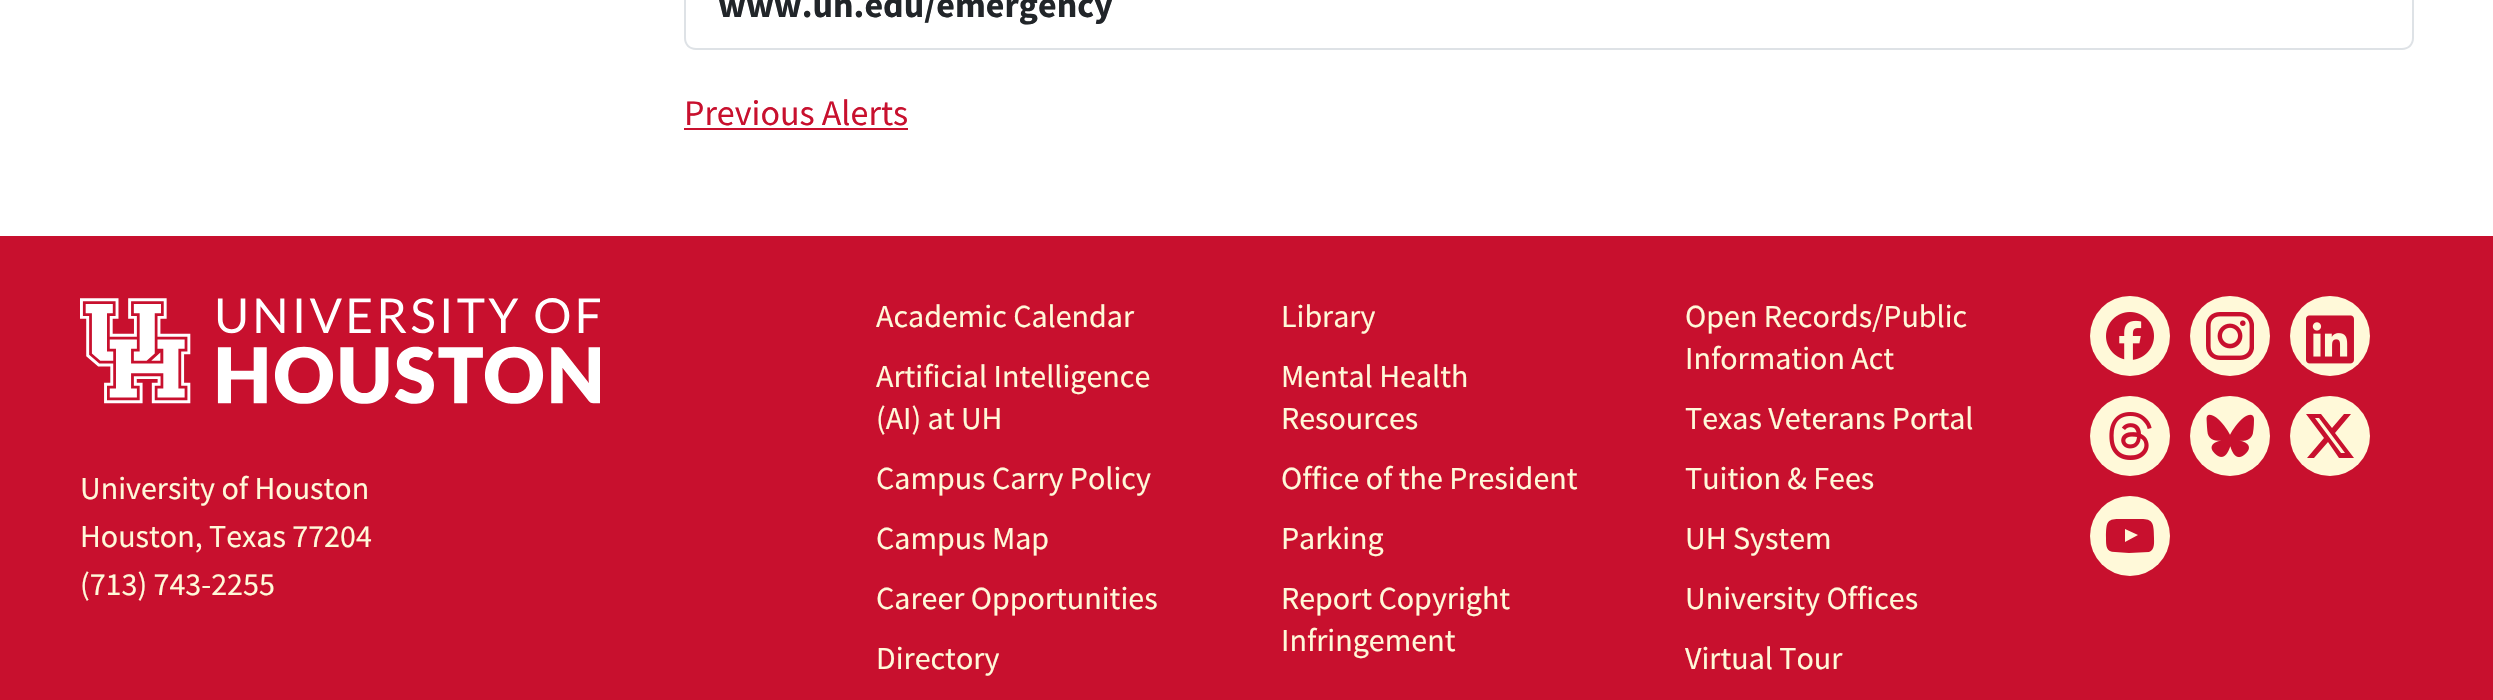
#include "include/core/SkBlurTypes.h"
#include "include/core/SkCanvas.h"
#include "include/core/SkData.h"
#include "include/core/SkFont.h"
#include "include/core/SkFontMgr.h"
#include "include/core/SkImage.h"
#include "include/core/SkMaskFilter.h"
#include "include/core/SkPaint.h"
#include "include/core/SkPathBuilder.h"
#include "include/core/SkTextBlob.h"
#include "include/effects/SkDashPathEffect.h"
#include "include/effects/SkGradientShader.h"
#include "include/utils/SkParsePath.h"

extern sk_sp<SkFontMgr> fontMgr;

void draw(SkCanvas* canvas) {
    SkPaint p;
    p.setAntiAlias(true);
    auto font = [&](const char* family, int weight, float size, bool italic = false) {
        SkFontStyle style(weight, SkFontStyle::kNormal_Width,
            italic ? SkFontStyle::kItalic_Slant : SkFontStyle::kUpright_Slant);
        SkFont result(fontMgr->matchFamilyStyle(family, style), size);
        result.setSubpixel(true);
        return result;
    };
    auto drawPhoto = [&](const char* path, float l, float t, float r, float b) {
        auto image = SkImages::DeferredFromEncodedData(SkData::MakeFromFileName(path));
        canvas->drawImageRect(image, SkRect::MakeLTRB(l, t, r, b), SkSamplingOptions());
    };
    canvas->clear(0xFFFFFFFF);
    p.setColor(0xFFDEE2E6);
    canvas->drawPath(SkPathBuilder(SkPathFillType::kEvenOdd).moveTo(684, -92).lineTo(2414, -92).lineTo(2414, 38).cubicTo(2414, 45, 2409, 50, 2402, 50).lineTo(696, 50).cubicTo(689, 50, 684, 45, 684, 38).close().moveTo(686, -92).lineTo(2412, -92).lineTo(2412, 38).cubicTo(2412, 44, 2408, 48, 2402, 48).lineTo(696, 48).cubicTo(690, 48, 686, 44, 686, 38).close().detach(), p);
    auto font1 = font("Source Sans Pro", 700, 36);
    p.setColor(0xFF212529);
    canvas->drawString("www.uh.edu/emergency", 718, 17, font1, p);
    auto font2 = font("Source Sans Pro", 400, 36);
    p.setColor(0xFFC8102E);
    canvas->drawString("Previous Alerts", 684, 125, font2, p);
    canvas->drawRect(SkRect::MakeLTRB(684, 128, 908, 130), p);
    canvas->drawRect(SkRect::MakeLTRB(0, 236, 2493, 700), p);
    drawPhoto("media/1.png", 80, 298, 600, 404);
    auto font3 = font("Source Sans Pro", 400, 32);
    p.setColor(0xFFFFF9D9);
    {
        const struct { const char* s; float x, y; } items[] = {
            {"University of Houston", 80, 499},
            {"Houston, Texas 77204", 80, 547},
            {"(713) 743-2255", 80, 595},
            {"Academic Calendar", 876, 327},
            {"Library", 1281, 327},
            {"Open Records/Public", 1685, 327},
            {"Information Act", 1685, 369},
            {"Artificial Intelligence", 876, 387},
            {"(AI) at UH", 876, 429},
            {"Mental Health", 1281, 387},
            {"Resources", 1281, 429},
            {"Texas Veterans Portal", 1685, 429},
            {"Campus Carry Policy", 876, 489},
            {"Office of the President", 1281, 489},
            {"Tuition & Fees", 1685, 489},
            {"Campus Map", 876, 549},
            {"Parking", 1281, 549},
            {"UH System", 1685, 549},
            {"Career Opportunities", 876, 609},
            {"Report Copyright", 1281, 609},
            {"Infringement", 1281, 651},
            {"University Offices", 1685, 609},
            {"Directory", 876, 669},
            {"Virtual Tour", 1685, 669},
        };
        for (auto [s, x, y] : items) {
            canvas->drawString(s, x, y, font3, p);
        }
    }
    canvas->drawCircle(2130, 336, 40, p);
    drawPhoto("media/2.png", 2106, 312, 2154, 360);
    canvas->drawCircle(2230, 336, 40, p);
    drawPhoto("media/3.png", 2206, 312, 2254, 360);
    canvas->drawCircle(2330, 336, 40, p);
    drawPhoto("media/4.png", 2306, 315, 2354, 364);
    canvas->drawCircle(2130, 436, 40, p);
    drawPhoto("media/5.png", 2109, 412, 2152, 460);
    canvas->drawCircle(2230, 436, 40, p);
    drawPhoto("media/6.png", 2206, 414, 2254, 458);
    canvas->drawCircle(2330, 436, 40, p);
    p.setColor(0xFFC8102E);
    canvas->drawPath(SkPathBuilder().moveTo(2344, 414).lineTo(2351, 414).lineTo(2335, 433).lineTo(2354, 458).lineTo(2339, 458).lineTo(2328, 442).lineTo(2314, 458).lineTo(2307, 458).lineTo(2324, 438).lineTo(2306, 414).lineTo(2321, 414).lineTo(2332, 428).close().moveTo(2341, 453).lineTo(2345, 453).lineTo(2319, 418).lineTo(2315, 418).close().detach(), p);
    p.setColor(0xFFFFF9D9);
    canvas->drawCircle(2130, 536, 40, p);
    p.setColor(0xFFC8102E);
    canvas->drawPath(SkPathBuilder().moveTo(2154, 538).cubicTo(2154, 542, 2155, 550, 2149, 552).lineTo(2129, 553).lineTo(2115, 552).cubicTo(2106, 552, 2106, 546, 2106, 538).cubicTo(2106, 517, 2108, 519, 2130, 519).cubicTo(2151, 519, 2154, 517, 2154, 538).close().moveTo(2125, 542).lineTo(2138, 535).lineTo(2125, 529).close().detach(), p);
}
